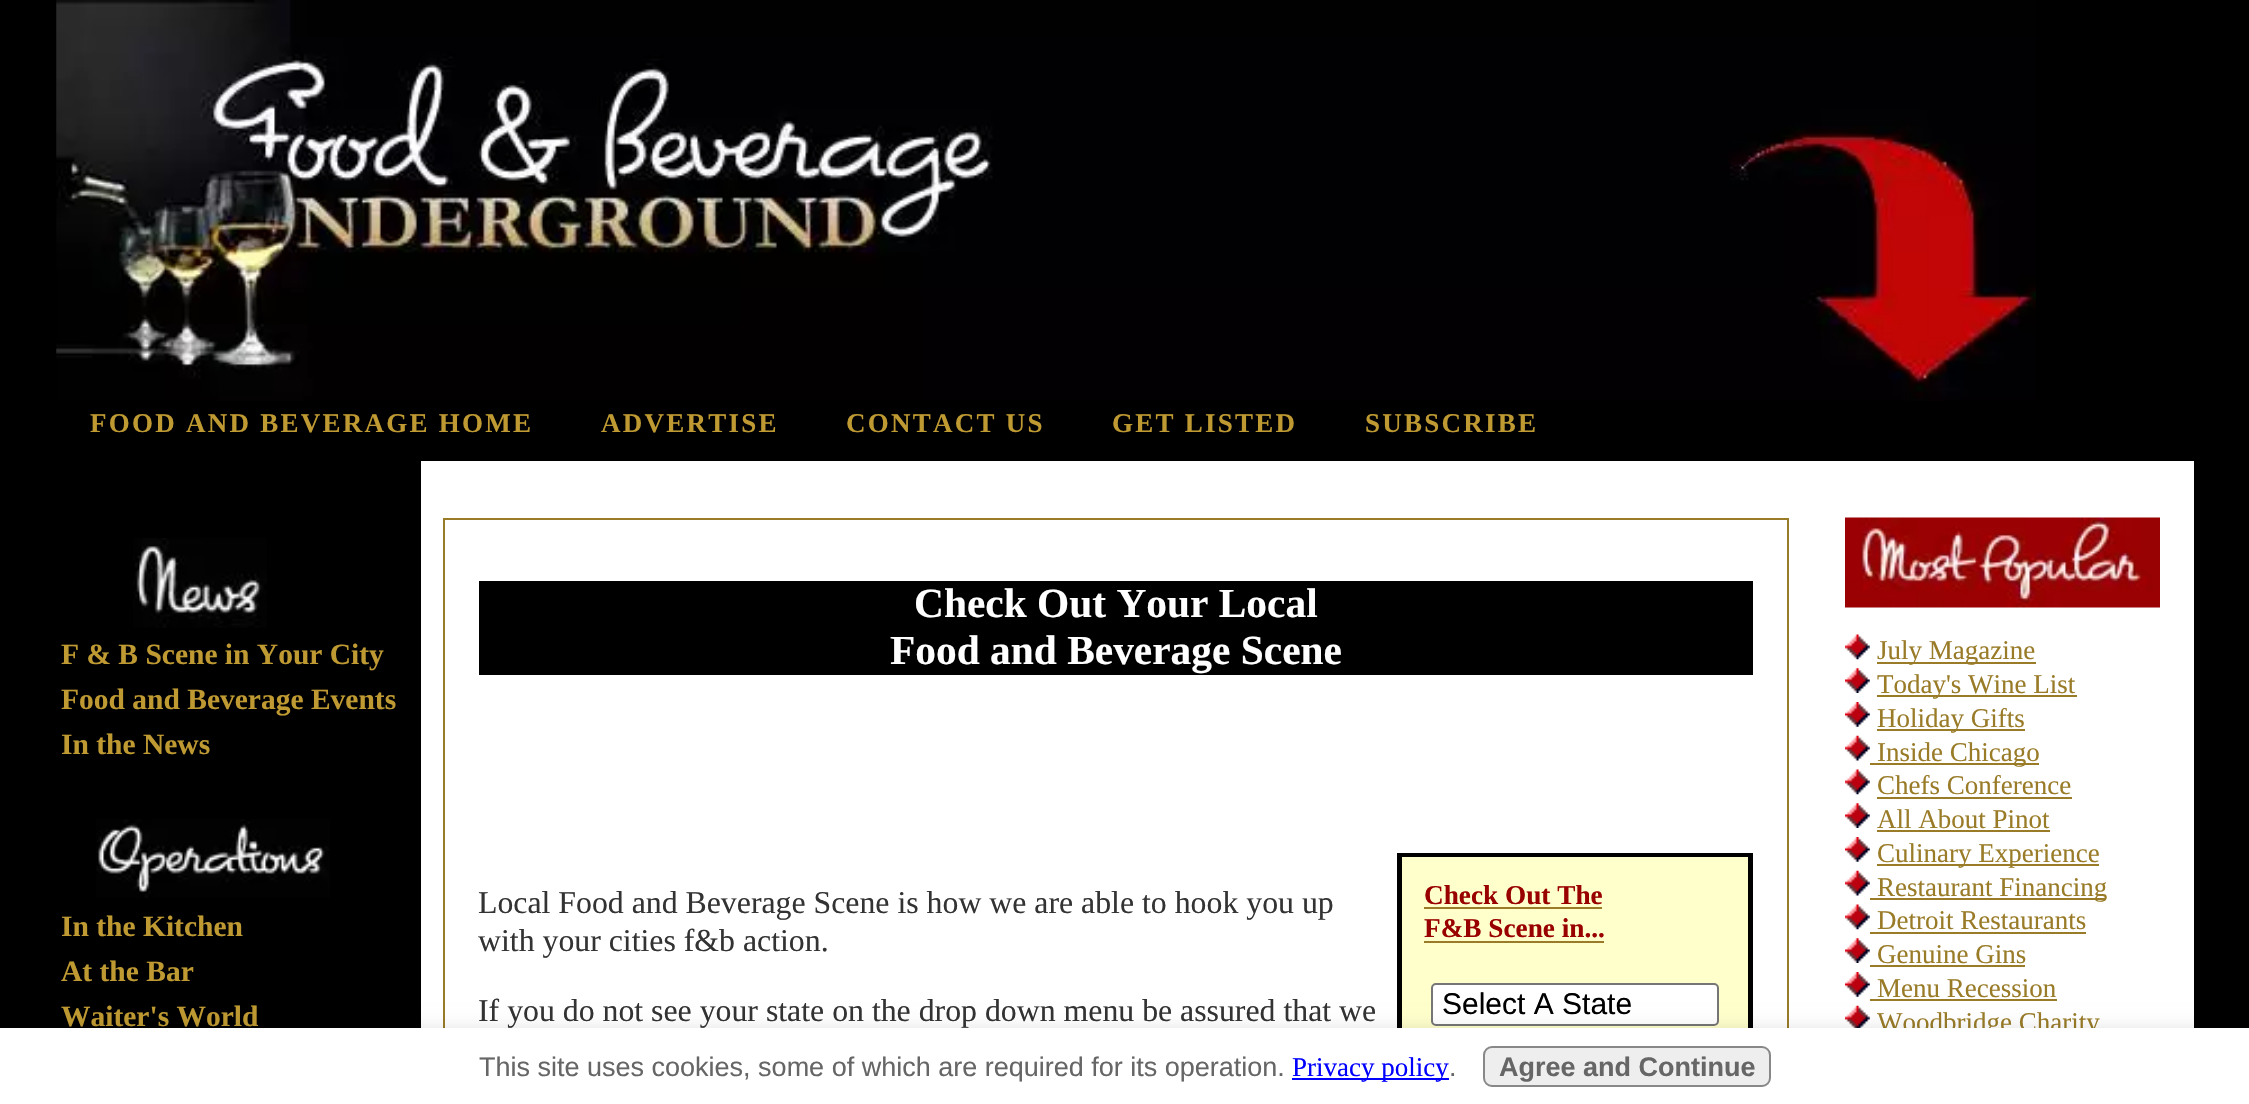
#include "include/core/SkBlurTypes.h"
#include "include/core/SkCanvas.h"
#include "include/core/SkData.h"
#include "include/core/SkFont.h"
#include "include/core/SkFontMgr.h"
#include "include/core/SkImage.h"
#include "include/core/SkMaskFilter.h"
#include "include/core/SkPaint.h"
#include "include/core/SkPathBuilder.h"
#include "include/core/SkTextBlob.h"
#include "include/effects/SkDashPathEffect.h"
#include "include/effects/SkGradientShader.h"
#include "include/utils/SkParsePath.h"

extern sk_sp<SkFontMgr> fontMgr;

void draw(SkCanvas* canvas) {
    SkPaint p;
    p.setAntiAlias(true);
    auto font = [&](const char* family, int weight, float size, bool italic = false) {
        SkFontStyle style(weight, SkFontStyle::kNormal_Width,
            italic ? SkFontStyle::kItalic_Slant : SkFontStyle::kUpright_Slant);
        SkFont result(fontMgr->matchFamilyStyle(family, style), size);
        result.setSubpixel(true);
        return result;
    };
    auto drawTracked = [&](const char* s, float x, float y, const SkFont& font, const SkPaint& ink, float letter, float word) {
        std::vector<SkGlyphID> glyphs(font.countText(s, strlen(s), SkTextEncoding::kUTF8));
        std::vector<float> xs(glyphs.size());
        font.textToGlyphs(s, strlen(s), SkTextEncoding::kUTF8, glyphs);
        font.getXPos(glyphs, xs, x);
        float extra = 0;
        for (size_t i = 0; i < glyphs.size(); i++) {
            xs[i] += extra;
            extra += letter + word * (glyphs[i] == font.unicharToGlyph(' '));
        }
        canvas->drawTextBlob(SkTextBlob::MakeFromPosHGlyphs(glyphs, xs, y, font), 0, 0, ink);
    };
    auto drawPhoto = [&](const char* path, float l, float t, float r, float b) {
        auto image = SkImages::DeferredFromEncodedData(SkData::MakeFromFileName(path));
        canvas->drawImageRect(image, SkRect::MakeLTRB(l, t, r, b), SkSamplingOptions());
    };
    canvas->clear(0xFF000000);
    drawPhoto("media/1.png", 56, 0, 2036, 401);
    auto font1 = font("Liberation Serif", 700, 27);
    p.setColor(0xFFBF9A32);
    {
        const struct { const char* s; float x, y; } items[] = {
            {"FOOD AND BEVERAGE HOME", 90, 432},
            {"ADVERTISE", 601, 432},
            {"CONTACT US", 846, 432},
            {"GET LISTED", 1112, 432},
            {"SUBSCRIBE", 1365, 432},
        };
        for (auto [s, x, y] : items) {
            drawTracked(s, x, y, font1, p, 2.25f, 0);
        }
    }
    drawPhoto("media/2.png", 133, 538, 267, 628);
    auto font2 = font("Liberation Serif", 700, 29.5f);
    {
        const struct { const char* s; float x, y; } items[] = {
            {"F & B Scene in Your City", 61, 664},
            {"Food and Beverage Events", 61, 709},
            {"In the News", 61, 754},
        };
        for (auto [s, x, y] : items) {
            canvas->drawString(s, x, y, font2, p);
        }
    }
    drawPhoto("media/3.png", 96, 819, 330, 898);
    {
        const struct { const char* s; float x, y; } items[] = {
            {"In the Kitchen", 61, 936},
            {"At the Bar", 61, 981},
            {"Waiter's World", 61, 1026},
        };
        for (auto [s, x, y] : items) {
            canvas->drawString(s, x, y, font2, p);
        }
    }
    p.setColor(0xFFFFFFFF);
    canvas->drawRect(SkRect::MakeLTRB(421, 461, 2194, 1028), p);
    p.setStyle(SkPaint::kStroke_Style);
    p.setStrokeWidth(2);
    p.setColor(0xFF997B28);
    canvas->drawRect(SkRect::MakeLTRB(444, 519, 1788, 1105), p);
    p.setStyle(SkPaint::kFill_Style);
    p.setColor(0xFF000000);
    canvas->drawRect(SkRect::MakeLTRB(479, 581, 1753, 675), p);
    auto font3 = font("Liberation Serif", 700, 41.4f);
    p.setColor(0xFFFFFFFF);
    canvas->drawString("Check Out Your Local", 914, 617, font3, p);
    canvas->drawString("Food and Beverage Scene", 890, 664, font3, p);
    auto font4 = font("Liberation Serif", 400, 31.8f);
    p.setColor(0xFF333333);
    canvas->drawString("Local Food and Beverage Scene is how we are able to hook you up", 478, 913, font4, p);
    canvas->drawString("with your cities f&b action.", 478, 951, font4, p);
    p.setColor(0xFF000000);
    canvas->drawRect(SkRect::MakeLTRB(1397, 853, 1753, 1028), p);
    p.setColor(0xFFFFFFCC);
    canvas->drawRect(SkRect::MakeLTRB(1402, 857, 1748, 1028), p);
    auto font5 = font("Liberation Serif", 700, 27.25f);
    p.setColor(0xFF990000);
    canvas->drawString("Check Out The", 1424, 904, font5, p);
    p.setColor(0xFF997B28);
    canvas->drawRect(SkRect::MakeLTRB(1424, 907, 1602, 909), p);
    p.setColor(0xFF990000);
    canvas->drawString("F&B Scene in...", 1424, 937, font5, p);
    p.setColor(0xFF997B28);
    canvas->drawRect(SkRect::MakeLTRB(1424, 941, 1604, 943), p);
    p.setColor(0xFFFFFFFF);
    canvas->drawRoundRect(SkRect::MakeLTRB(1432, 984, 1718, 1025), 4, 4, p);
    p.setStyle(SkPaint::kStroke_Style);
    p.setColor(0xFF767676);
    canvas->drawRoundRect(SkRect::MakeLTRB(1432, 984, 1718, 1025), 4, 4, p);
    auto font6 = font("Liberation Sans", 400, 30);
    p.setStyle(SkPaint::kFill_Style);
    p.setColor(0xFF000000);
    canvas->drawString("Select A State", 1442, 1014, font6, p);
    p.setColor(0xFF333333);
    canvas->drawString("If you do not see your state on the drop down menu be assured that we", 478, 1021, font4, p);
    drawPhoto("media/4.png", 1845, 517, 2160, 608);
    drawPhoto("media/5.png", 1845, 634, 1870, 660);
    p.setColor(0xFF997B28);
    canvas->drawRect(SkRect::MakeLTRB(1877, 662, 2036, 664), p);
    auto font7 = font("Liberation Serif", 400, 27);
    canvas->drawString("July Magazine", 1877, 659, font7, p);
    drawPhoto("media/6.png", 1845, 668, 1870, 693);
    canvas->drawRect(SkRect::MakeLTRB(1877, 695, 2077, 697), p);
    canvas->drawString("Today's Wine List", 1877, 693, font7, p);
    drawPhoto("media/7.png", 1845, 702, 1870, 727);
    canvas->drawRect(SkRect::MakeLTRB(1877, 729, 2025, 731), p);
    canvas->drawString("Holiday Gifts", 1877, 727, font7, p);
    drawPhoto("media/8.png", 1845, 735, 1870, 761);
    canvas->drawRect(SkRect::MakeLTRB(1870, 763, 2039, 765), p);
    canvas->drawString("Inside Chicago", 1877, 761, font7, p);
    drawPhoto("media/5.png", 1845, 769, 1870, 795);
    canvas->drawString("Chefs Conference", 1877, 794, font7, p);
    canvas->drawRect(SkRect::MakeLTRB(1877, 797, 2072, 799), p);
    drawPhoto("media/6.png", 1845, 803, 1870, 828);
    canvas->drawString("All About Pinot", 1877, 828, font7, p);
    canvas->drawRect(SkRect::MakeLTRB(1877, 830, 2050, 832), p);
    drawPhoto("media/7.png", 1845, 837, 1870, 862);
    canvas->drawRect(SkRect::MakeLTRB(1877, 864, 2099, 866), p);
    canvas->drawString("Culinary Experience", 1877, 862, font7, p);
    drawPhoto("media/8.png", 1845, 870, 1870, 896);
    canvas->drawRect(SkRect::MakeLTRB(1870, 898, 2106, 900), p);
    canvas->drawString("Restaurant Financing", 1877, 896, font7, p);
    drawPhoto("media/5.png", 1845, 904, 1870, 930);
    canvas->drawString("Detroit Restaurants", 1877, 929, font7, p);
    canvas->drawRect(SkRect::MakeLTRB(1870, 932, 2086, 934), p);
    drawPhoto("media/6.png", 1845, 938, 1870, 963);
    canvas->drawString("Genuine Gins", 1877, 963, font7, p);
    canvas->drawRect(SkRect::MakeLTRB(1870, 965, 2025, 967), p);
    drawPhoto("media/7.png", 1845, 972, 1870, 997);
    canvas->drawString("Menu Recession", 1877, 997, font7, p);
    canvas->drawRect(SkRect::MakeLTRB(1870, 999, 2057, 1001), p);
    drawPhoto("media/9.png", 1845, 1005, 1870, 1028);
    canvas->drawString("Woodbridge Charity", 1877, 1031, font7, p);
    p.setColor(0x33000000);
    p.setMaskFilter(SkMaskFilter::MakeBlur(kNormal_SkBlurStyle, 11));
    canvas->drawRect(SkRect::MakeLTRB(-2, 1035, 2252, 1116), p);
    p.setMaskFilter(nullptr);
    p.setColor(0xFFFFFFFF);
    canvas->drawRect(SkRect::MakeLTRB(0, 1028, 2249, 1104), p);
    auto font8 = font("Liberation Sans", 400, 27);
    p.setColor(0xFF666666);
    canvas->drawString("This site uses cookies, some of which are required for its operation.", 479, 1076, font8, p);
    p.setColor(0xFF0000FF);
    canvas->drawRect(SkRect::MakeLTRB(1292, 1078, 1449, 1080), p);
    canvas->drawString("Privacy policy", 1292, 1076, font7, p);
    p.setColor(0xFF666666);
    canvas->drawString(".", 1449, 1076, font8, p);
    p.setColor(0xFFEEEEEE);
    canvas->drawRoundRect(SkRect::MakeLTRB(1484, 1047, 1770, 1086), 8, 8, p);
    p.setStyle(SkPaint::kStroke_Style);
    p.setColor(0xFF888888);
    canvas->drawRoundRect(SkRect::MakeLTRB(1484, 1047, 1770, 1086), 8, 8, p);
    auto font9 = font("Liberation Sans", 700, 27);
    p.setStyle(SkPaint::kFill_Style);
    p.setColor(0xFF666666);
    canvas->drawString("Agree and Continue", 1499, 1076, font9, p);
}
